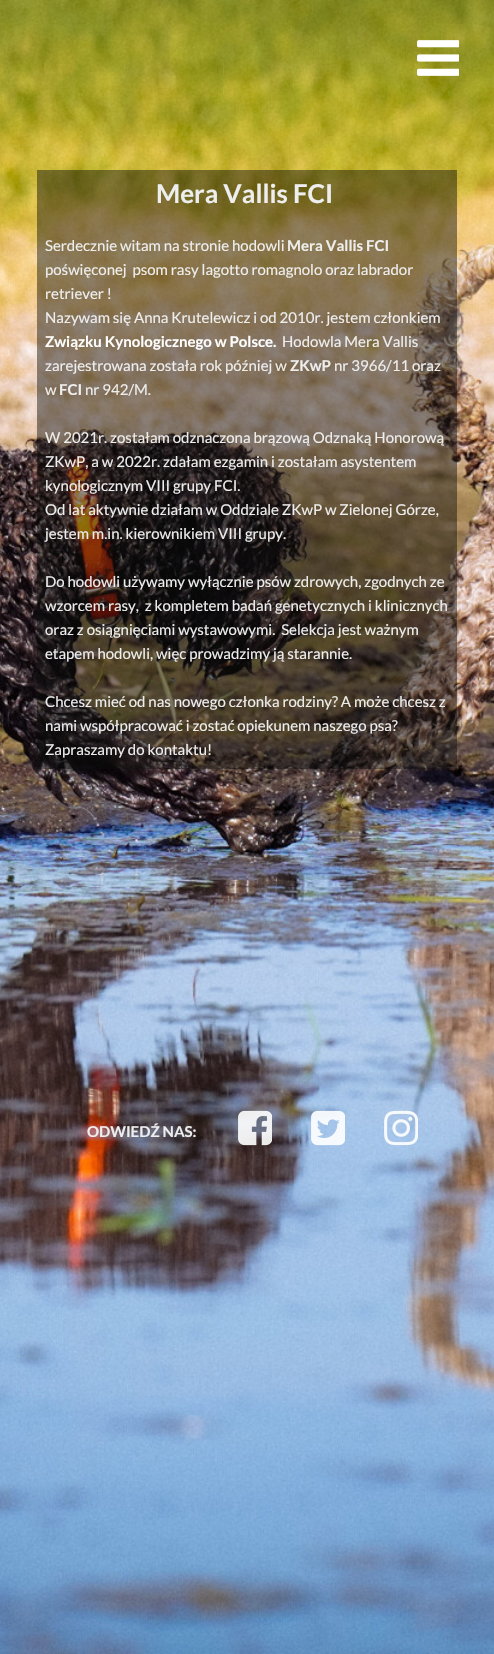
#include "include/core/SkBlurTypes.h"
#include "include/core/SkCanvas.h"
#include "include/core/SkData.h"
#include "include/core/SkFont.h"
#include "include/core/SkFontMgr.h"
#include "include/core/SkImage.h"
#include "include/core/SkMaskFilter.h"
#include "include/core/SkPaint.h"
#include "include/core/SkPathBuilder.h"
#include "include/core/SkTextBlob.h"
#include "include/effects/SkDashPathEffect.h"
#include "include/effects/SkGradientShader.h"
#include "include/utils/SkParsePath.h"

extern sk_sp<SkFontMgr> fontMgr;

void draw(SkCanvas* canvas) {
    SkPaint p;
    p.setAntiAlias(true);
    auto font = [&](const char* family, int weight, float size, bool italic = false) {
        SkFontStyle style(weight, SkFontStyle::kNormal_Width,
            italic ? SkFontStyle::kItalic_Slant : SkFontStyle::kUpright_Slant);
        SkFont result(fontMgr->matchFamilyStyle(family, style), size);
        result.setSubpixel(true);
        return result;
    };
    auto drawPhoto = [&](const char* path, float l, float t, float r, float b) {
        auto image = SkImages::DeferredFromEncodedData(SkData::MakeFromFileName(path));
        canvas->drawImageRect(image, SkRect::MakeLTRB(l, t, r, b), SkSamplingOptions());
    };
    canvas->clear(0xFFFFFFFF);
    drawPhoto("media/1.png", 0, 0, 494, 1654);
    drawPhoto("media/2.png", 417, 40, 459, 76);
    p.setColor(0x750B0D0B);
    canvas->drawRect(SkRect::MakeLTRB(37, 170, 457, 769), p);
    auto font1 = font("Lato", 700, 26);
    p.setColor(0xFFEEEEEE);
    canvas->drawString("Mera Vallis FCI", 156, 203, font1, p);
    auto font2 = font("Lato", 400, 15);
    canvas->drawString("Serdecznie witam na stronie hodowli", 45, 251, font2, p);
    auto font3 = font("Lato", 700, 15);
    canvas->drawString("Mera Vallis FCI", 287, 251, font3, p);
    {
        const struct { const char* s; float x, y; } items[] = {
            {"poświęconej  psom rasy lagotto romagnolo oraz labrador", 45, 275},
            {"retriever !", 45, 299},
            {"Nazywam się Anna Krutelewicz i od 2010r. jestem członkiem", 45, 323},
        };
        for (auto [s, x, y] : items) {
            canvas->drawString(s, x, y, font2, p);
        }
    }
    p.setColor(0xFFFFFFFF);
    canvas->drawString("Związku Kynologicznego w Polsce.", 45, 347, font3, p);
    p.setColor(0xFFEEEEEE);
    canvas->drawString("Hodowla Mera Vallis", 282, 347, font2, p);
    canvas->drawString("zarejestrowana została rok później w", 45, 371, font2, p);
    canvas->drawString("ZKwP", 290, 371, font3, p);
    canvas->drawString("nr 3966/11 oraz", 334, 371, font2, p);
    canvas->drawString("w", 45, 395, font2, p);
    canvas->drawString("FCI", 59, 395, font3, p);
    {
        const struct { const char* s; float x, y; } items[] = {
            {"nr 942/M.", 85, 395},
            {"W 2021r. zostałam odznaczona brązową Odznaką Honorową", 45, 443},
            {"ZKwP, a w 2022r. zdałam ezgamin i zostałam asystentem", 45, 467},
            {"kynologicznym VIII grupy FCI.", 45, 491},
            {"Od lat aktywnie działam w Oddziale ZKwP w Zielonej Górze,", 45, 515},
            {"jestem m.in. kierownikiem VIII grupy.", 45, 539},
            {"Do hodowli używamy wyłącznie psów zdrowych, zgodnych ze", 45, 587},
            {"wzorcem rasy,  z kompletem badań genetycznych i klinicznych", 45, 611},
            {"oraz z osiągnięciami wystawowymi.  Selekcja jest ważnym", 45, 635},
            {"etapem hodowli, więc prowadzimy ją starannie.", 45, 659},
            {"Chcesz mieć od nas nowego członka rodziny? A może chcesz z", 45, 707},
            {"nami współpracować i zostać opiekunem naszego psa?", 45, 731},
            {"Zapraszamy do kontaktu!", 45, 755},
        };
        for (auto [s, x, y] : items) {
            canvas->drawString(s, x, y, font2, p);
        }
    }
    canvas->drawString("ODWIEDŹ NAS:", 87, 1137, font3, p);
    drawPhoto("media/3.png", 238, 1110, 272, 1146);
    drawPhoto("media/4.png", 311, 1110, 345, 1146);
    drawPhoto("media/5.png", 384, 1110, 418, 1146);
}
